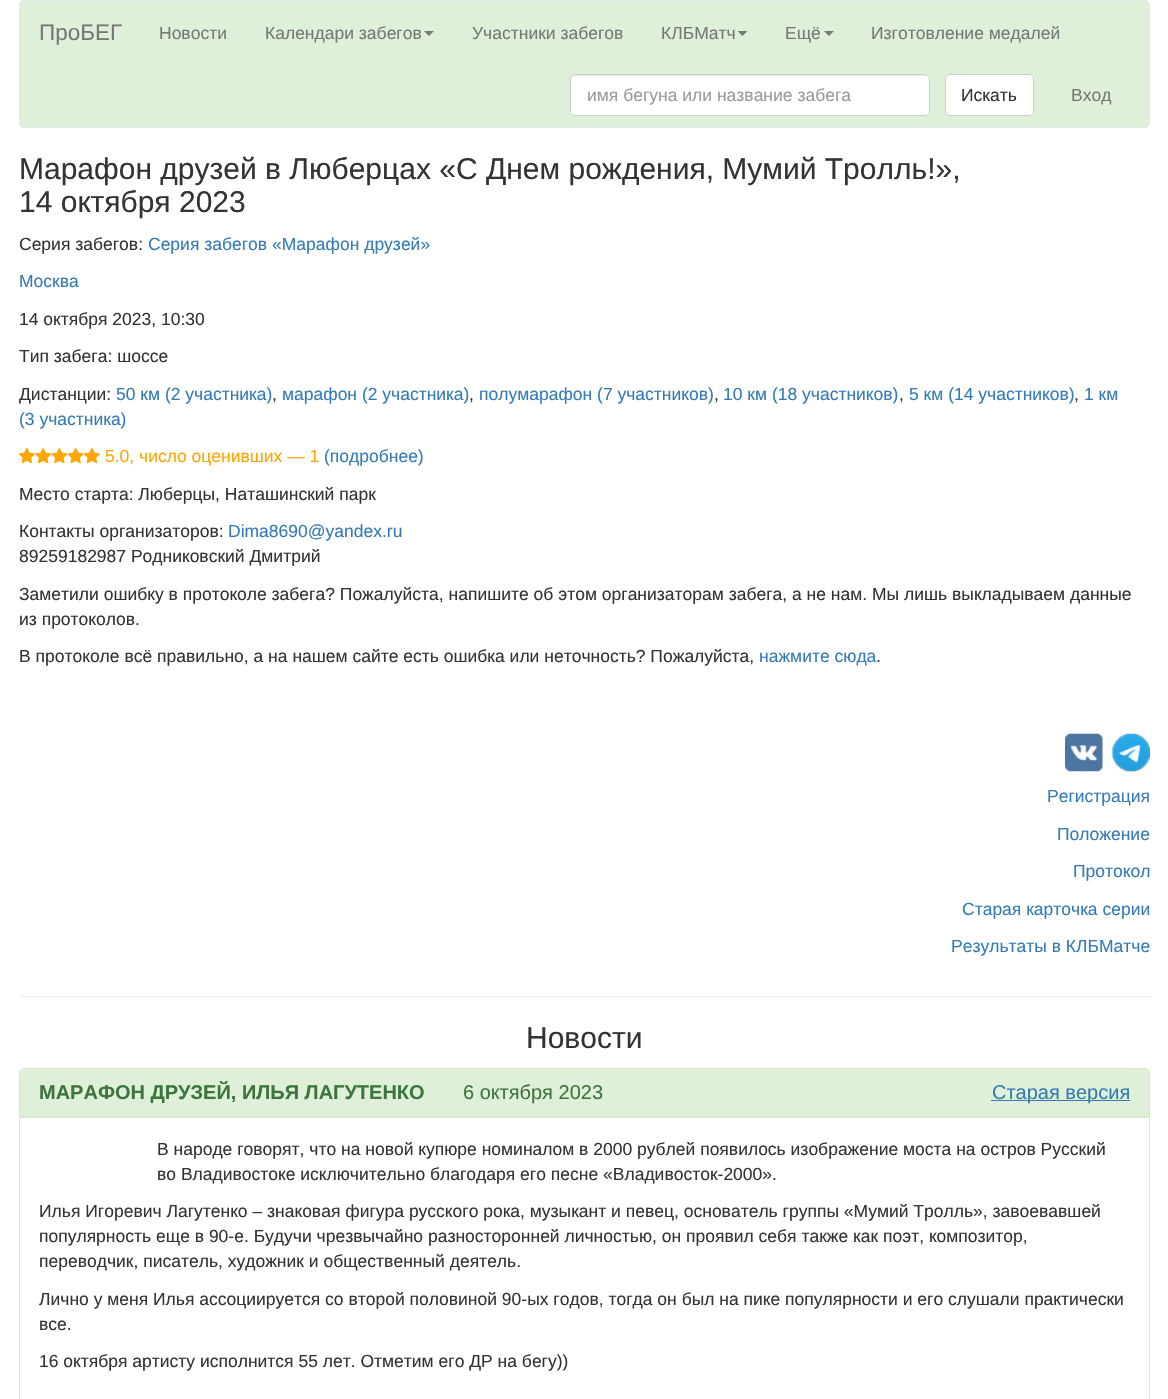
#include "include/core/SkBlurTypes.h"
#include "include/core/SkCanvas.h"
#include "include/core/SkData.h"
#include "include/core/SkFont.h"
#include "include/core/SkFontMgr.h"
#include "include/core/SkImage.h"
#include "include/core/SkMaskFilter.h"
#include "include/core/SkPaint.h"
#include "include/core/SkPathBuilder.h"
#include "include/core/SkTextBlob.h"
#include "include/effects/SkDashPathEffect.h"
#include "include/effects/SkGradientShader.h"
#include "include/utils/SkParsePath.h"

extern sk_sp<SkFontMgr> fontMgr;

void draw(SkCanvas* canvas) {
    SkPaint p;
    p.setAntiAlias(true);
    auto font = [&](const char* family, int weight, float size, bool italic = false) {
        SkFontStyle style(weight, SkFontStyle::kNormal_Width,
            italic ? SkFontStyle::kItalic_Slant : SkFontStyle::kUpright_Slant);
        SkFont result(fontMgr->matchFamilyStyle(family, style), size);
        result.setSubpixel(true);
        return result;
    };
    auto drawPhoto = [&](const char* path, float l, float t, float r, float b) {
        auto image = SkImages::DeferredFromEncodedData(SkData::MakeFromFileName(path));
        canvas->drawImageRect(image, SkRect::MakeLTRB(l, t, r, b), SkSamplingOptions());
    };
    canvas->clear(0xFFFFFFFF);
    p.setColor(0xFFDFF0D8);
    canvas->drawRoundRect(SkRect::MakeLTRB(19.5f, 0.5f, 1149.5f, 127.5f), 4.5f, 4.5f, p);
    p.setStyle(SkPaint::kStroke_Style);
    p.setStrokeWidth(1);
    p.setColor(0xFFE7E7E7);
    canvas->drawRoundRect(SkRect::MakeLTRB(19.5f, 0.5f, 1149.5f, 127.5f), 4.5f, 4.5f, p);
    auto font1 = font("Liberation Sans", 400, 22.5f);
    p.setStyle(SkPaint::kFill_Style);
    p.setColor(0xFF777777);
    canvas->drawString("ПроБЕГ", 39, 40, font1, p);
    auto font2 = font("Liberation Sans", 400, 17.5f);
    canvas->drawString("Новости", 159, 39, font2, p);
    canvas->drawString("Календари забегов", 265, 39, font2, p);
    canvas->drawPath(SkPathBuilder().moveTo(424, 31).lineTo(434, 31).lineTo(429, 36).close().detach(), p);
    canvas->drawString("Участники забегов", 472, 39, font2, p);
    canvas->drawString("КЛБМатч", 661, 39, font2, p);
    canvas->drawPath(SkPathBuilder().moveTo(737.5f, 31).lineTo(747.5f, 31).lineTo(742.5f, 36).close().detach(), p);
    canvas->drawString("Ещё", 785, 39, font2, p);
    canvas->drawPath(SkPathBuilder().moveTo(824, 31).lineTo(834, 31).lineTo(829, 36).close().detach(), p);
    canvas->drawString("Изготовление медалей", 871, 39, font2, p);
    p.setColor(0xFFFFFFFF);
    canvas->drawRoundRect(SkRect::MakeLTRB(570, 74, 930, 116), 5, 5, p);
    p.setColor(0xFFECECEC);
    canvas->drawPath(SkPathBuilder().moveTo(575, 76).lineTo(925, 76).cubicTo(927, 76, 929, 78, 929, 80).lineTo(928, 77).lineTo(926, 75).lineTo(575, 75).cubicTo(572, 75, 571, 77, 571, 80).cubicTo(571, 78, 573, 76, 575, 76).close().detach(), p);
    p.setStyle(SkPaint::kStroke_Style);
    p.setColor(0xFFCCCCCC);
    canvas->drawRoundRect(SkRect::MakeLTRB(570.5f, 74.5f, 929.5f, 115.5f), 4.5f, 4.5f, p);
    p.setStyle(SkPaint::kFill_Style);
    p.setColor(0xFF999999);
    canvas->drawString("имя бегуна или название забега", 587, 101, font2, p);
    p.setColor(0xFFFFFFFF);
    canvas->drawRoundRect(SkRect::MakeLTRB(945.5f, 74.5f, 1033.5f, 115.5f), 4.5f, 4.5f, p);
    p.setStyle(SkPaint::kStroke_Style);
    p.setColor(0xFFCCCCCC);
    canvas->drawRoundRect(SkRect::MakeLTRB(945.5f, 74.5f, 1033.5f, 115.5f), 4.5f, 4.5f, p);
    p.setStyle(SkPaint::kFill_Style);
    p.setColor(0xFF333333);
    canvas->drawString("Искать", 961, 101, font2, p);
    p.setColor(0xFF777777);
    canvas->drawString("Вход", 1071, 101, font2, p);
    auto font3 = font("Liberation Sans", 400, 30);
    p.setColor(0xFF333333);
    canvas->drawString("Марафон друзей в Люберцах «С Днем рождения, Мумий Тролль!»,", 19, 179, font3, p);
    canvas->drawString("14 октября 2023", 19, 212, font3, p);
    canvas->drawString("Серия забегов:", 19, 250, font2, p);
    p.setColor(0xFF337AB7);
    canvas->drawString("Серия забегов «Марафон друзей»", 148, 250, font2, p);
    canvas->drawString("Москва", 19, 287, font2, p);
    p.setColor(0xFF333333);
    {
        const struct { const char* s; float x, y; } items[] = {
            {"14 октября 2023, 10:30", 19, 325},
            {"Тип забега: шоссе", 19, 362},
            {"Дистанции:", 19, 400},
        };
        for (auto [s, x, y] : items) {
            canvas->drawString(s, x, y, font2, p);
        }
    }
    p.setColor(0xFF337AB7);
    {
        const struct { const char* s; float x, y; } items[] = {
            {"50 км (2 участника)", 116, 400},
            {"марафон (2 участника)", 282, 400},
            {"полумарафон (7 участников)", 479, 400},
            {"10 км (18 участников)", 723, 400},
            {"5 км (14 участников)", 909, 400},
            {"1 км", 1084, 400},
        };
        for (auto [s, x, y] : items) {
            canvas->drawString(s, x, y, font2, p);
        }
    }
    p.setColor(0xFF333333);
    {
        const struct { const char* s; float x, y; } items[] = {
            {",", 272, 400},
            {",", 469, 400},
            {",", 714, 400},
            {",", 899, 400},
            {",", 1074, 400},
        };
        for (auto [s, x, y] : items) {
            canvas->drawString(s, x, y, font2, p);
        }
    }
    p.setColor(0xFF337AB7);
    canvas->drawString("(3 участника)", 19, 425, font2, p);
    drawPhoto("media/1.png", 18, 447, 35, 464);
    drawPhoto("media/2.png", 35, 447, 52, 464);
    drawPhoto("media/3.png", 51, 447, 68, 464);
    drawPhoto("media/4.png", 67, 447, 84, 464);
    drawPhoto("media/5.png", 83, 447, 100, 464);
    p.setColor(0xFFFFA500);
    canvas->drawString("5.0, число оценивших — 1", 105, 462, font2, p);
    p.setColor(0xFF337AB7);
    canvas->drawString("(подробнее)", 324, 462, font2, p);
    p.setColor(0xFF333333);
    canvas->drawString("Место старта: Люберцы, Наташинский парк", 19, 500, font2, p);
    canvas->drawString("Контакты организаторов:", 19, 537, font2, p);
    p.setColor(0xFF337AB7);
    canvas->drawString("Dima8690@yandex.ru", 228, 537, font2, p);
    p.setColor(0xFF333333);
    {
        const struct { const char* s; float x, y; } items[] = {
            {"89259182987 Родниковский Дмитрий", 19, 562},
            {"Заметили ошибку в протоколе забега? Пожалуйста, напишите об этом организаторам забега, а не нам. Мы лишь выкладываем данные", 19, 600},
            {"из протоколов.", 19, 625},
            {"В протоколе всё правильно, а на нашем сайте есть ошибка или неточность? Пожалуйста,", 19, 662},
        };
        for (auto [s, x, y] : items) {
            canvas->drawString(s, x, y, font2, p);
        }
    }
    p.setColor(0xFF337AB7);
    canvas->drawString("нажмите сюда", 759, 662, font2, p);
    p.setColor(0xFF333333);
    canvas->drawString(".", 876, 662, font2, p);
    drawPhoto("media/6.png", 1065, 733, 1103, 772);
    drawPhoto("media/7.png", 1112, 733, 1150, 772);
    p.setColor(0xFF337AB7);
    {
        const struct { const char* s; float x, y; } items[] = {
            {"Регистрация", 1047, 802},
            {"Положение", 1057, 840},
            {"Протокол", 1073, 877},
            {"Старая карточка серии", 962, 915},
            {"Результаты в КЛБМатче", 951, 952},
        };
        for (auto [s, x, y] : items) {
            canvas->drawString(s, x, y, font2, p);
        }
    }
    p.setColor(0xFFEEEEEE);
    canvas->drawRect(SkRect::MakeLTRB(19, 996, 1150, 997), p);
    p.setColor(0xFF333333);
    canvas->drawString("Новости", 526, 1048, font3, p);
    p.setStyle(SkPaint::kStroke_Style);
    p.setColor(0xFFD6E9C6);
    canvas->drawRoundRect(SkRect::MakeLTRB(19.5f, 1068.5f, 1149.5f, 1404.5f), 4.5f, 4.5f, p);
    p.setStyle(SkPaint::kFill_Style);
    p.setColor(0xFFDFF0D8);
    canvas->drawPath(SkPathBuilder().moveTo(24, 1069).lineTo(1145, 1069).cubicTo(1147, 1069, 1149, 1071, 1149, 1073).lineTo(1149, 1118).lineTo(20, 1118).lineTo(20, 1073).cubicTo(20, 1071, 22, 1069, 24, 1069).close().detach(), p);
    p.setColor(0xFFD6E9C6);
    canvas->drawRect(SkRect::MakeLTRB(20, 1116, 1149, 1117), p);
    auto font4 = font("Liberation Sans", 700, 20);
    p.setColor(0xFF3C763D);
    canvas->drawString("МАРАФОН ДРУЗЕЙ, ИЛЬЯ ЛАГУТЕНКО", 39, 1099, font4, p);
    auto font5 = font("Liberation Sans", 400, 20);
    canvas->drawString("6 октября 2023", 463, 1099, font5, p);
    p.setColor(0xFF337AB7);
    canvas->drawRect(SkRect::MakeLTRB(991, 1100, 1130, 1101), p);
    canvas->drawString("Старая версия", 992, 1099, font5, p);
    p.setColor(0xFF333333);
    {
        const struct { const char* s; float x, y; } items[] = {
            {"В народе говорят, что на новой купюре номиналом в 2000 рублей появилось изображение моста на остров Русский", 157, 1155},
            {"во Владивостоке исключительно благодаря его песне «Владивосток-2000».", 157, 1180},
            {"Илья Игоревич Лагутенко – знаковая фигура русского рока, музыкант и певец, основатель группы «Мумий Тролль», завоевавшей", 39, 1217},
            {"популярность еще в 90-е. Будучи чрезвычайно разносторонней личностью, он проявил себя также как поэт, композитор,", 39, 1242},
            {"переводчик, писатель, художник и общественный деятель.", 39, 1267},
            {"Лично у меня Илья ассоциируется со второй половиной 90-ых годов, тогда он был на пике популярности и его слушали практически", 39, 1305},
            {"все.", 39, 1330},
            {"16 октября артисту исполнится 55 лет. Отметим его ДР на бегу))", 39, 1367},
        };
        for (auto [s, x, y] : items) {
            canvas->drawString(s, x, y, font2, p);
        }
    }
}
